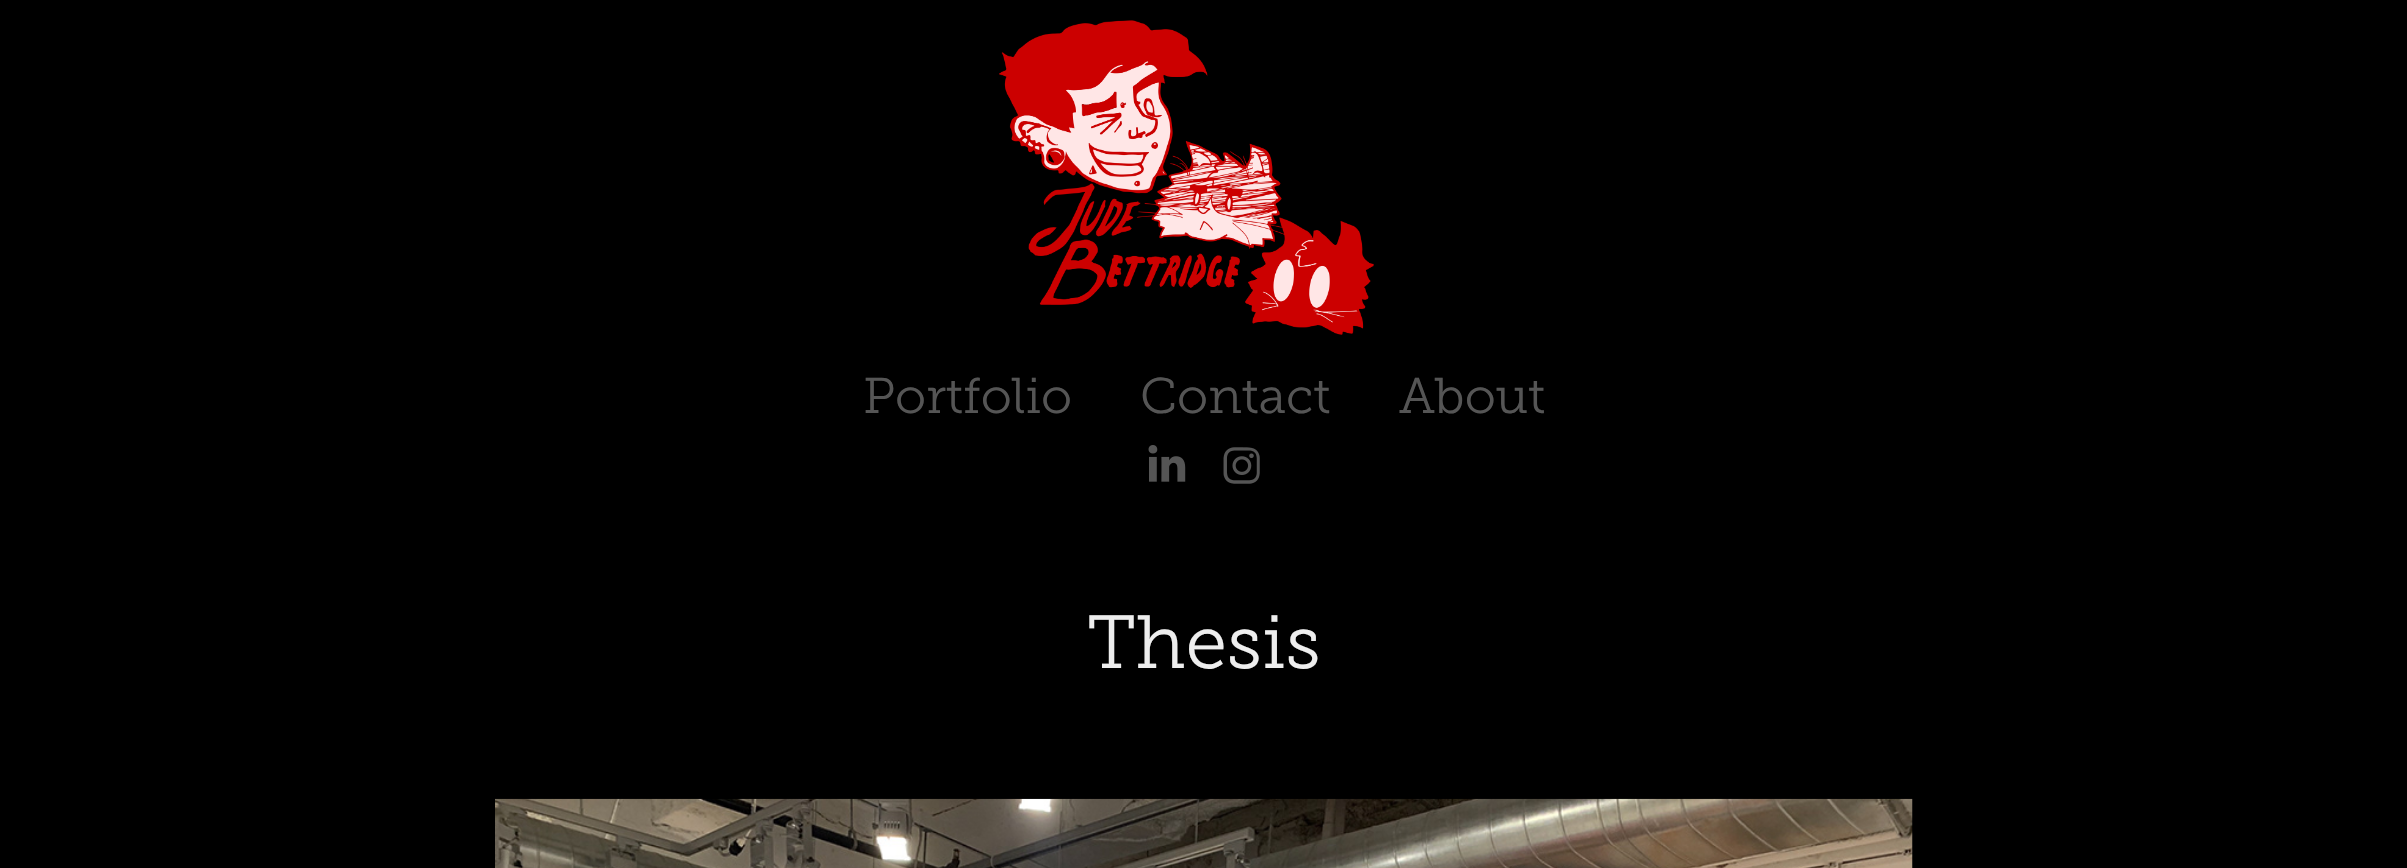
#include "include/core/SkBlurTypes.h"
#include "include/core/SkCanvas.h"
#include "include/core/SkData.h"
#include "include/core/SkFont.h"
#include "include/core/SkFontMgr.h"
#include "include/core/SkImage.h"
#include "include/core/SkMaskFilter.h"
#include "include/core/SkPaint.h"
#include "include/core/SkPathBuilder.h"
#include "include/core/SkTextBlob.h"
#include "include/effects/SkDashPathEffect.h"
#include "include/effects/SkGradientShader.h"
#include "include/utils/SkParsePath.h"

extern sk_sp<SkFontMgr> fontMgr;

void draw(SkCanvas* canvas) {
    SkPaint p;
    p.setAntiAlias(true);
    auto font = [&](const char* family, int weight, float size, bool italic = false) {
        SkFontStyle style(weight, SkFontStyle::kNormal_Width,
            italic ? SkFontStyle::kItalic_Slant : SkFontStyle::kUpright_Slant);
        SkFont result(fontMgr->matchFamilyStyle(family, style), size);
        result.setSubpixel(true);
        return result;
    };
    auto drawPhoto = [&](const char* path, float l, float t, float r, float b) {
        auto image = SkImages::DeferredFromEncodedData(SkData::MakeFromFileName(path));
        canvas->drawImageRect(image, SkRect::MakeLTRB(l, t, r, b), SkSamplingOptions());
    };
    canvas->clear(0xFF000000);
    drawPhoto("media/1.png", 999, 20, 1374, 335);
    auto font1 = font("Museo Slab", 300, 50);
    p.setColor(0xFF555555);
    {
        const struct { const char* s; float x, y; } items[] = {
            {"Portfolio", 863, 413},
            {"Contact", 1140, 413},
            {"About", 1399, 413},
        };
        for (auto [s, x, y] : items) {
            canvas->drawString(s, x, y, font1, p);
        }
    }
    drawPhoto("media/2.png", 1148, 445, 1186, 482);
    drawPhoto("media/3.png", 1223, 447, 1260, 484);
    auto font2 = font("Museo Slab", 300, 75);
    p.setColor(0xFFEEEEEE);
    canvas->drawString("Thesis", 1087, 668, font2, p);
    drawPhoto("media/4.png", 495, 798, 1913, 868);
}
